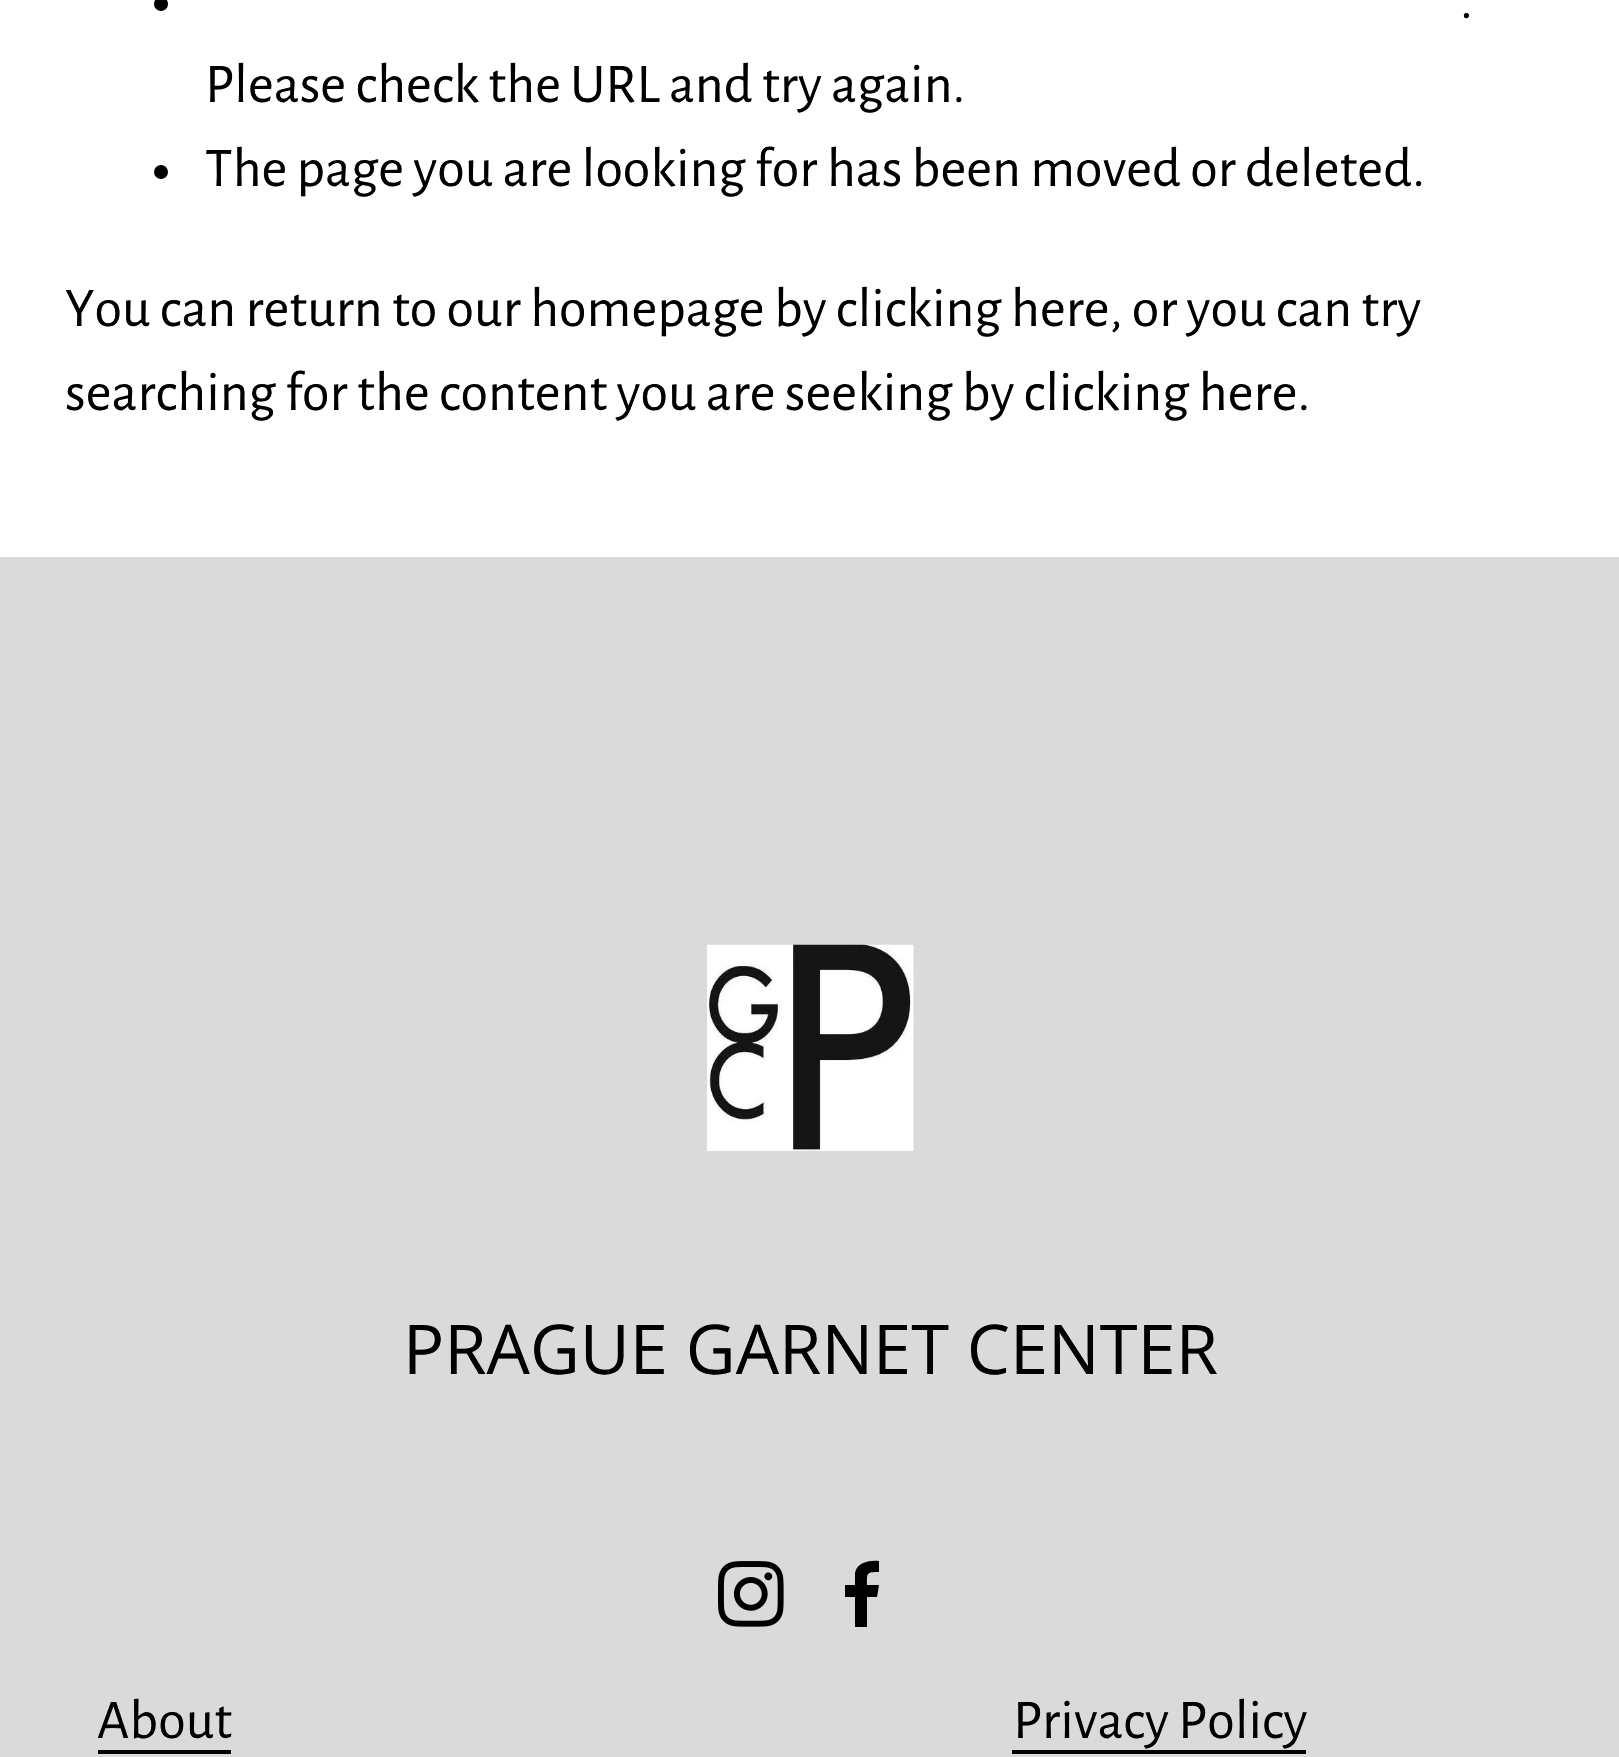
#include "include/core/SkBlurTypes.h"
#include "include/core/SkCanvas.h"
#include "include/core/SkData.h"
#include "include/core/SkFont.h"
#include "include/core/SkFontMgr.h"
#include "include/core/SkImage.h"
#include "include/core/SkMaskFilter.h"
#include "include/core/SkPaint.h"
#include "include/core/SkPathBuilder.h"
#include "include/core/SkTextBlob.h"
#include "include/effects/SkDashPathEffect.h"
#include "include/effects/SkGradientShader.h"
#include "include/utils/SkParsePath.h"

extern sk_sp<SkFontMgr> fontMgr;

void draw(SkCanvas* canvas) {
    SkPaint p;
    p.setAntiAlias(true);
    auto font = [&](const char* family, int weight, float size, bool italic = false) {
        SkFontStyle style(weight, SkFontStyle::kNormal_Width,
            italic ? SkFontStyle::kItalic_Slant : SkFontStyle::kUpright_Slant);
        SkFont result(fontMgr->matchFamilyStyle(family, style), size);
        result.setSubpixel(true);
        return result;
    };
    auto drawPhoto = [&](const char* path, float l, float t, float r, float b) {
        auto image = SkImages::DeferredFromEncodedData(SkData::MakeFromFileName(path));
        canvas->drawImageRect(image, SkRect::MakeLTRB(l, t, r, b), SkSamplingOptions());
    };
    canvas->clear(0xFFFFFFFF);
    p.setColor(0xFF000000);
    canvas->drawCircle(161, 4, 7, p);
    auto font1 = font("Alegreya Sans", 400, 56);
    canvas->drawString(".", 1460, 18, font1, p);
    canvas->drawString("Please check the URL and try again.", 205, 102, font1, p);
    canvas->drawCircle(161, 172, 7, p);
    {
        const struct { const char* s; float x, y; } items[] = {
            {"The page you are looking for has been moved or deleted.", 205, 186},
            {"You can return to our homepage by clicking here, or you can try", 65, 326},
            {"searching for the content you are seeking by clicking here.", 65, 410},
        };
        for (auto [s, x, y] : items) {
            canvas->drawString(s, x, y, font1, p);
        }
    }
    p.setColor(0xFFDADADA);
    canvas->drawRect(SkRect::MakeLTRB(0, 557, 1619, 1757), p);
    drawPhoto("media/1.png", 707, 944, 914, 1151);
    auto font2 = font("Open Sans", 400, 68.6f);
    p.setColor(0xFF000000);
    canvas->drawString("PRAGUE GARNET CENTER", 403, 1374, font2, p);
    drawPhoto("media/2.png", 718, 1561, 784, 1627);
    canvas->drawPath(SkPathBuilder().moveTo(867, 1627).lineTo(867, 1597).lineTo(877, 1597).lineTo(879, 1585).lineTo(867, 1585).cubicTo(867, 1573, 866, 1572, 879, 1572).lineTo(879, 1561).cubicTo(870, 1560, 857, 1562, 855, 1573).lineTo(855, 1585).lineTo(845, 1585).lineTo(845, 1597).lineTo(855, 1597).lineTo(855, 1627).close().detach(), p);
    canvas->drawString("About", 97, 1738, font1, p);
    canvas->drawRect(SkRect::MakeLTRB(98, 1750, 231, 1754), p);
    canvas->drawString("Privacy Policy", 1013, 1738, font1, p);
    canvas->drawRect(SkRect::MakeLTRB(1012, 1750, 1306, 1754), p);
}
